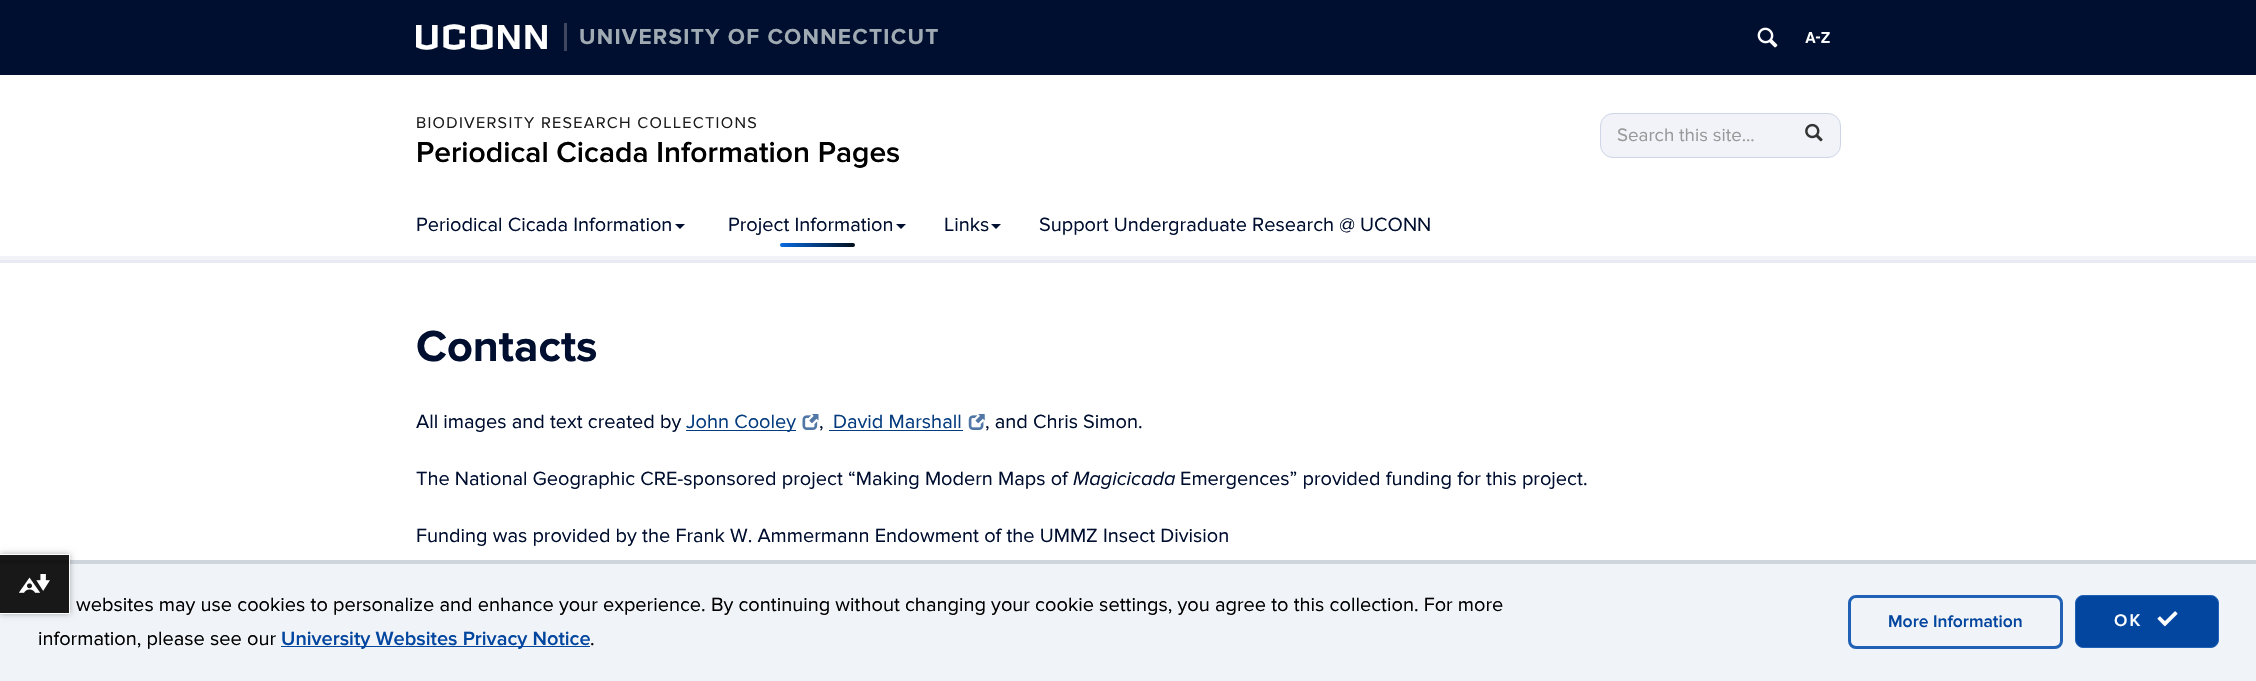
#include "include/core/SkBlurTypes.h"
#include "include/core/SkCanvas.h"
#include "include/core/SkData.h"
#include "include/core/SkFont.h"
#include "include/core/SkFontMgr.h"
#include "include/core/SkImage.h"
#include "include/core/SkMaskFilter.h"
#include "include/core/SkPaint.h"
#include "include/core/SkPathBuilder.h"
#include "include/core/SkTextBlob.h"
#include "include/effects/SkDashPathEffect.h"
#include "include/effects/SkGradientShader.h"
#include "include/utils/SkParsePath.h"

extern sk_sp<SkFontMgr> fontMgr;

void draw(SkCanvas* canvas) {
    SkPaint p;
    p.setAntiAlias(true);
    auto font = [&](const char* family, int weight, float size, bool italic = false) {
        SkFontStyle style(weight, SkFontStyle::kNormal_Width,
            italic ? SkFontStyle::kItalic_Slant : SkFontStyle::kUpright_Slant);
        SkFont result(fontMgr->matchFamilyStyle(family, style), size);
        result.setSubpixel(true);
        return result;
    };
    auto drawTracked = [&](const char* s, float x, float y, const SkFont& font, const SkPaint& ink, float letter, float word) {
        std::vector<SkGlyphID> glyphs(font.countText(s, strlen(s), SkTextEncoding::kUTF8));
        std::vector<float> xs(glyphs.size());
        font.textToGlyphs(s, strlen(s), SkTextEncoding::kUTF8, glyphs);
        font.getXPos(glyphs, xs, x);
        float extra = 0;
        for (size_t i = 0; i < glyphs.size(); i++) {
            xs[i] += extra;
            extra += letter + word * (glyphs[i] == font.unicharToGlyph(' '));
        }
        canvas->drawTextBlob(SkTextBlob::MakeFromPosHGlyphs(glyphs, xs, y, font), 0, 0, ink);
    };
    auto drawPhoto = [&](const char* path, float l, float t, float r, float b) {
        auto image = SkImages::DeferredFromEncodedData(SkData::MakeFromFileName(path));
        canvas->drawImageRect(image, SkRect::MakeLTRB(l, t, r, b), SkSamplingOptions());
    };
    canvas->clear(0xFFFFFFFF);
    p.setColor(0xFF000E2F);
    canvas->drawRect(SkRect::MakeLTRB(0, 0, 2256, 75), p);
    auto font1 = font("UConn", 400, 40);
    p.setColor(0xFFFFFFFF);
    drawTracked("UCONN", 416, 49, font1, p, 3.75f, 0);
    auto font2 = font("Proxima Nova", 700, 22.5f);
    p.setColor(0xFF9FAAB2);
    drawTracked("UNIVERSITY OF CONNECTICUT", 579, 44, font2, p, 1.25f, 0);
    p.setColor(0xFF3F4760);
    canvas->drawRect(SkRect::MakeLTRB(564, 23, 567, 51), p);
    drawPhoto("media/1.png", 1757, 27, 1778, 48);
    drawPhoto("media/2.png", 1805, 32, 1830, 43);
    auto font3 = font("Proxima Nova", 400, 16.25f);
    p.setColor(0xFF1C1C1C);
    drawTracked("BIODIVERSITY RESEARCH COLLECTIONS", 416, 128, font3, p, 1.25f, 0);
    auto font4 = font("Proxima Nova", 600, 30);
    p.setColor(0xFF000000);
    canvas->drawString("Periodical Cicada Information Pages", 416, 162, font4, p);
    p.setColor(0xFFF1F3F8);
    canvas->drawRoundRect(SkRect::MakeLTRB(1600.5f, 113.5f, 1840.5f, 157.5f), 12.5f, 12.5f, p);
    p.setStyle(SkPaint::kStroke_Style);
    p.setStrokeWidth(1);
    p.setColor(0xFFCED5E6);
    canvas->drawRoundRect(SkRect::MakeLTRB(1600.5f, 113.5f, 1840.5f, 157.5f), 12.5f, 12.5f, p);
    auto font5 = font("Proxima Nova", 400, 18.75f);
    p.setStyle(SkPaint::kFill_Style);
    p.setColor(0xFF999999);
    canvas->drawString("Search this site...", 1617, 141, font5, p);
    drawPhoto("media/3.png", 1805, 123, 1823, 142);
    auto font6 = font("Proxima Nova", 400, 20);
    p.setColor(0xFF000E2F);
    canvas->drawString("Periodical Cicada Information", 416, 231, font6, p);
    canvas->drawPath(SkPathBuilder().moveTo(675, 224).lineTo(685, 224).lineTo(680, 229).close().detach(), p);
    canvas->drawString("Project Information", 728, 231, font6, p);
    canvas->drawPath(SkPathBuilder().moveTo(896, 224).lineTo(906, 224).lineTo(901, 229).close().detach(), p);
    {
        const SkColor colors[] = {0xFF096AE1, 0xFF010E1D};
        const float stops[] = {0, 1};
        const SkPoint ends[] = {{780, 244}, {855, 244}};
        p.setShader(SkGradientShader::MakeLinear(ends, colors, stops, 2, SkTileMode::kClamp));
        p.setAlpha(255);
    }
    canvas->drawRoundRect(SkRect::MakeLTRB(780, 243, 855, 247), 2, 2, p);
    p.setShader(nullptr);
    p.setColor(0xFF000E2F);
    canvas->drawString("Links", 944, 231, font6, p);
    canvas->drawPath(SkPathBuilder().moveTo(991, 224).lineTo(1001, 224).lineTo(996, 229).close().detach(), p);
    canvas->drawString("Support Undergraduate Research @ UCONN", 1039, 231, font6, p);
    p.setColor(0xFFF1F3F8);
    canvas->drawRect(SkRect::MakeLTRB(0, 256, 2256, 260), p);
    p.setColor(0xFFE7EAF2);
    canvas->drawRect(SkRect::MakeLTRB(0, 260, 2256, 263), p);
    auto font7 = font("Proxima Nova", 700, 45);
    p.setColor(0xFF000E2F);
    canvas->drawString("Contacts", 416, 361, font7, p);
    canvas->drawString("All images and text created by", 416, 428, font6, p);
    p.setColor(0xFF053C7F);
    canvas->drawRect(SkRect::MakeLTRB(686, 430, 796, 431), p);
    canvas->drawString("John Cooley", 686, 428, font6, p);
    drawPhoto("media/4.png", 802, 414, 819, 430);
    p.setColor(0xFF000E2F);
    canvas->drawString(",", 819, 428, font6, p);
    p.setColor(0xFF053C7F);
    canvas->drawString("David Marshall", 833, 428, font6, p);
    canvas->drawRect(SkRect::MakeLTRB(829, 430, 963, 431), p);
    drawPhoto("media/5.png", 968, 414, 985, 430);
    p.setColor(0xFF000E2F);
    canvas->drawString(", and Chris Simon.", 985, 428, font6, p);
    canvas->drawString("The National Geographic CRE-sponsored project “Making Modern Maps of", 416, 485, font6, p);
    auto font8 = font("Proxima Nova", 400, 20, true);
    canvas->drawString("Magicicada", 1073, 485, font8, p);
    canvas->drawString("Emergences” provided funding for this project.", 1180, 485, font6, p);
    canvas->drawString("Funding was provided by the Frank W. Ammermann Endowment of the UMMZ Insect Division", 416, 542, font6, p);
    p.setColor(0xFFF0F3F7);
    canvas->drawRect(SkRect::MakeLTRB(0, 564, 2256, 681), p);
    p.setColor(0xFFCFD5DD);
    canvas->drawRect(SkRect::MakeLTRB(0, 560, 2256, 564), p);
    canvas->save();
    canvas->clipPath(SkPathBuilder(SkPathFillType::kEvenOdd).moveTo(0, 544).lineTo(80, 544).lineTo(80, 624).lineTo(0, 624).close().moveTo(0, 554).lineTo(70, 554).lineTo(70, 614).lineTo(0, 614).close().detach(), true);
    p.setColor(0x4D000000);
    p.setMaskFilter(SkMaskFilter::MakeBlur(kNormal_SkBlurStyle, 3));
    canvas->drawRect(SkRect::MakeLTRB(0, 554, 70, 614), p);
    p.setMaskFilter(nullptr);
    canvas->restore();
    {
        const struct { float l, t, r, b; SkColor color; } items[] = {
            {0, 555, 69, 613, 0xE6000000},
            {69, 554, 70, 614, 0xFFFFFFFF},
            {0, 613, 70, 614, 0xFFFFFFFF},
        };
        for (auto [l, t, r, b, color] : items) {
            p.setColor(color);
            canvas->drawRect(SkRect::MakeLTRB(l, t, r, b), p);
        }
    }
    drawPhoto("media/6.png", 19, 574, 50, 593);
    p.setColor(0xFF000000);
    canvas->drawString("websites may use cookies to personalize and enhance your experience. By continuing without changing your cookie settings, you agree to this collection. For more", 76, 611, font6, p);
    canvas->drawString("information, please see our", 38, 645, font6, p);
    p.setColor(0xFF03469F);
    canvas->drawRect(SkRect::MakeLTRB(281, 646, 590, 647), p);
    auto font9 = font("Proxima Nova", 600, 20);
    canvas->drawString("University Websites Privacy Notice", 281, 645, font9, p);
    p.setColor(0xFF000000);
    canvas->drawString(".", 590, 645, font6, p);
    p.setStyle(SkPaint::kStroke_Style);
    p.setStrokeWidth(3);
    p.setColor(0xFF2061B6);
    canvas->drawRoundRect(SkRect::MakeLTRB(1849.5f, 596.5f, 2061.5f, 647.5f), 6.5f, 6.5f, p);
    auto font10 = font("Proxima Nova", 600, 17.5f);
    p.setStyle(SkPaint::kFill_Style);
    p.setColor(0xFF03469F);
    canvas->drawString("More Information", 1888, 627, font10, p);
    canvas->drawRoundRect(SkRect::MakeLTRB(2075.5f, 595.5f, 2218.5f, 647.5f), 7.5f, 7.5f, p);
    p.setStyle(SkPaint::kStroke_Style);
    p.setStrokeWidth(1);
    p.setColor(0xFF2061B6);
    canvas->drawRoundRect(SkRect::MakeLTRB(2075.5f, 595.5f, 2218.5f, 647.5f), 7.5f, 7.5f, p);
    p.setStyle(SkPaint::kFill_Style);
    p.setColor(0xFFFFFFFF);
    drawTracked("OK", 2114, 626, font10, p, 2, 0);
    drawPhoto("media/7.png", 2157, 611, 2178, 627);
}
